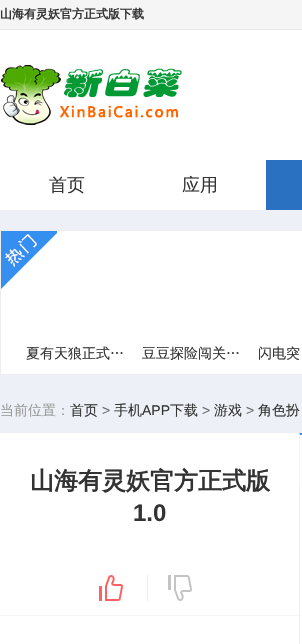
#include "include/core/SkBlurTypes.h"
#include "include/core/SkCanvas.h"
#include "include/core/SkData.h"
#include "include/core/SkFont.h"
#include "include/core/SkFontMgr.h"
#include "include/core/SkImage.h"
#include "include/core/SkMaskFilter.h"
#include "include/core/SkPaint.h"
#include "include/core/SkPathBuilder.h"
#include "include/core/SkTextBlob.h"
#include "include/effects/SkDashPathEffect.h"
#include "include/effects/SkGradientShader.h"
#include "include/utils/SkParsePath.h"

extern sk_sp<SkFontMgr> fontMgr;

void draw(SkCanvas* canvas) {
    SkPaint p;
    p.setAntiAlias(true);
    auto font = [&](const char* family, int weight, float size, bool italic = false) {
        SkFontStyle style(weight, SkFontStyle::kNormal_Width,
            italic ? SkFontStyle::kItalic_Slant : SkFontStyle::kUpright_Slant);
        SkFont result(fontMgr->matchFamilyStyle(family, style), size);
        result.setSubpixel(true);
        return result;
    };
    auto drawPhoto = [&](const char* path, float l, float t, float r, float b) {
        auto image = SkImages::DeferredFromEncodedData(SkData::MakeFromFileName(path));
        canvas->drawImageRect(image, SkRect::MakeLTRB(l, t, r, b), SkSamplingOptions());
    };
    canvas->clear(0xFFFFFFFF);
    p.setColor(0xFFF5F5F5);
    canvas->drawRect(SkRect::MakeLTRB(0, 0, 302, 29), p);
    p.setColor(0xFFE8E8E8);
    canvas->drawRect(SkRect::MakeLTRB(0, 29, 302, 30), p);
    auto font1 = font("WenQuanYi Zen Hei", 700, 12);
    p.setColor(0xFF333333);
    canvas->drawString("山海有灵妖官方正式版下载", 0, 18, font1, p);
    drawPhoto("media/1.png", 1, 65, 182, 125);
    auto font2 = font("WenQuanYi Zen Hei", 500, 18);
    canvas->drawString("首页", 49, 191, font2, p);
    canvas->drawString("应用", 182, 191, font2, p);
    p.setColor(0xFF2B71C2);
    canvas->drawRect(SkRect::MakeLTRB(266, 160, 302, 210), p);
    p.setColor(0xFFEDF1F7);
    canvas->drawRect(SkRect::MakeLTRB(0, 210, 302, 433), p);
    p.setColor(0xFFFFFFFF);
    canvas->drawRect(SkRect::MakeLTRB(0.5f, 230.5f, 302.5f, 374.5f), p);
    p.setStyle(SkPaint::kStroke_Style);
    p.setStrokeWidth(1);
    p.setColor(0xFFEDEDED);
    canvas->drawRect(SkRect::MakeLTRB(0.5f, 230.5f, 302.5f, 374.5f), p);
    drawPhoto("media/2.png", 1, 231, 57, 289);
    auto font3 = font("WenQuanYi Zen Hei", 500, 14);
    p.setStyle(SkPaint::kFill_Style);
    p.setColor(0xFF333333);
    {
        const struct { const char* s; float x, y; } items[] = {
            {"夏有天狼正式…", 26, 358},
            {"豆豆探险闯关…", 142, 358},
            {"闪电突", 258, 358},
        };
        for (auto [s, x, y] : items) {
            canvas->drawString(s, x, y, font3, p);
        }
    }
    p.setColor(0xFF999999);
    canvas->drawString("当前位置：", 0, 415, font3, p);
    p.setColor(0xFF333333);
    canvas->drawString("首页", 70, 415, font3, p);
    auto font4 = font("Liberation Sans", 400, 14);
    p.setColor(0xFF666666);
    canvas->drawString(">", 102, 415, font4, p);
    p.setColor(0xFF333333);
    canvas->drawString("手机", 114, 415, font3, p);
    canvas->drawString("APP", 142, 415, font4, p);
    canvas->drawString("下载", 170, 415, font3, p);
    p.setColor(0xFF666666);
    canvas->drawString(">", 202, 415, font4, p);
    p.setColor(0xFF333333);
    canvas->drawString("游戏", 214, 415, font3, p);
    p.setColor(0xFF666666);
    canvas->drawString(">", 246, 415, font4, p);
    p.setColor(0xFF333333);
    canvas->drawString("角色扮", 258, 415, font3, p);
    p.setColor(0xFFF5F5F5);
    canvas->drawRect(SkRect::MakeLTRB(0, 615, 299, 616), p);
    auto font5 = font("WenQuanYi Zen Hei", 700, 24);
    p.setColor(0xFF333333);
    canvas->drawString("山海有灵妖官方正式版", 30, 489, font5, p);
    auto font6 = font("Liberation Sans", 700, 24);
    canvas->drawString("1.0", 133, 521, font6, p);
    drawPhoto("media/3.png", 99, 575, 123, 601);
    p.setColor(0xFFEDEDED);
    canvas->drawRect(SkRect::MakeLTRB(147, 575, 148, 601), p);
    drawPhoto("media/4.png", 168, 575, 192, 601);
    canvas->drawRect(SkRect::MakeLTRB(299, 433, 300, 644), p);
    p.setColor(0xFF358FF0);
    canvas->drawPath(SkPathBuilder().moveTo(299, 433).lineTo(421, 433).lineTo(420, 435).lineTo(300, 435).close().detach(), p);
    p.setColor(0xFFFFFFFF);
    canvas->drawRect(SkRect::MakeLTRB(299, 483, 302, 484), p);
    p.setColor(0xFFF6F6F6);
    canvas->drawPath(SkPathBuilder().moveTo(299, 484).lineTo(299, 433).lineTo(300, 435).lineTo(300, 483).close().detach(), p);
}
